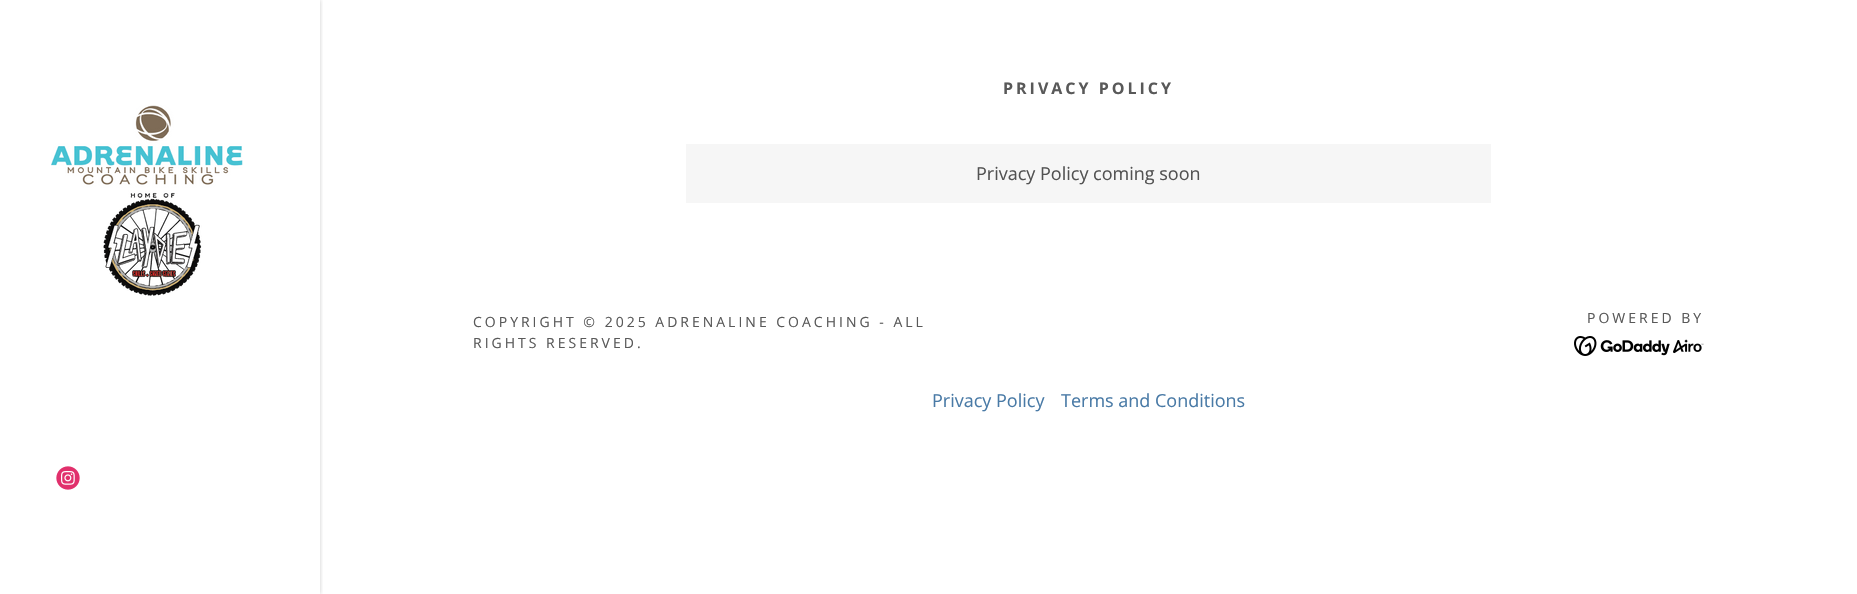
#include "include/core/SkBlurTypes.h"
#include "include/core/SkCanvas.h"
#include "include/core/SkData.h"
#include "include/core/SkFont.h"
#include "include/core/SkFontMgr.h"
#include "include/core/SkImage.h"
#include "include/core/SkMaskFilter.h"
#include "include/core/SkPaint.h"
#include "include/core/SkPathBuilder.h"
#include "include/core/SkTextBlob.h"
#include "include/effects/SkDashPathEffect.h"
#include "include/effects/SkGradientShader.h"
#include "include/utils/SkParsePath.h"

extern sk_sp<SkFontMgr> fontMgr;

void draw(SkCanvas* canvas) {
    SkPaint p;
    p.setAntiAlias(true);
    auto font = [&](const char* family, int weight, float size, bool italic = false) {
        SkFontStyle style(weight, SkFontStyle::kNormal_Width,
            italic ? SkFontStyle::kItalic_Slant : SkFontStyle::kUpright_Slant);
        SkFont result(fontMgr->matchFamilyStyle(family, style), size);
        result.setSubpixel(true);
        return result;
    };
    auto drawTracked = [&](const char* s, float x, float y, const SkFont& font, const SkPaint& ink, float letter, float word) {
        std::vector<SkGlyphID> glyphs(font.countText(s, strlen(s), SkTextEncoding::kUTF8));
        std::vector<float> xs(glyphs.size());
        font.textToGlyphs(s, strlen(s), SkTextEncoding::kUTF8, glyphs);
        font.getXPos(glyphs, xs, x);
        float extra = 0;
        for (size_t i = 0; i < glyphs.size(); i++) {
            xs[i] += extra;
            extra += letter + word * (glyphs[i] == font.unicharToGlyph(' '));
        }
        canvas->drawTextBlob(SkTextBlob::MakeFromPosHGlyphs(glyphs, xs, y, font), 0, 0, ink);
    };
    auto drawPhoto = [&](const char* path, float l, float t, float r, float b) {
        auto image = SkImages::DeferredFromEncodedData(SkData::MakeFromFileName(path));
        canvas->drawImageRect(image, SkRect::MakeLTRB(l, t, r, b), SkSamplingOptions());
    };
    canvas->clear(0xFFFFFFFF);
    canvas->save();
    canvas->clipRect(SkRect::MakeLTRB(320, 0, 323, 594));
    p.setColor(0x33000000);
    p.setMaskFilter(SkMaskFilter::MakeBlur(kNormal_SkBlurStyle, 2));
    canvas->drawRect(SkRect::MakeLTRB(0, 0, 320, 594), p);
    p.setMaskFilter(nullptr);
    canvas->restore();
    drawPhoto("media/1.png", 51, 105, 243, 296);
    drawPhoto("media/2.png", 56, 466, 80, 490);
    auto font1 = font("Open Sans", 700, 16);
    p.setColor(0xFF595959);
    drawTracked("PRIVACY POLICY", 1003, 94, font1, p, 3, 0);
    p.setColor(0xFFF6F6F6);
    canvas->drawRect(SkRect::MakeLTRB(686, 144, 1491, 203), p);
    auto font2 = font("Open Sans", 400, 18);
    p.setColor(0xFF525252);
    canvas->drawString("Privacy Policy coming soon", 976, 180, font2, p);
    auto font3 = font("Open Sans", 400, 14);
    p.setColor(0xFF595959);
    {
        const struct { const char* s; float x, y; } items[] = {
            {"COPYRIGHT © 2025 ADRENALINE COACHING - ALL", 473, 327},
            {"RIGHTS RESERVED.", 473, 348},
            {"POWERED BY", 1587, 323},
        };
        for (auto [s, x, y] : items) {
            drawTracked(s, x, y, font3, p, 3, 0);
        }
    }
    drawPhoto("media/3.png", 1574, 336, 1704, 356);
    p.setColor(0xFF497AA6);
    canvas->drawString("Privacy Policy", 932, 407, font2, p);
    canvas->drawString("Terms and Conditions", 1061, 407, font2, p);
}
